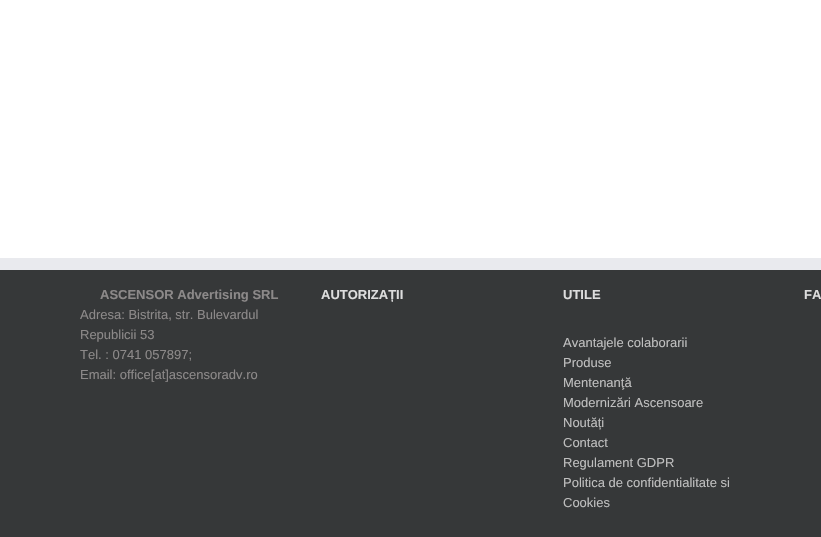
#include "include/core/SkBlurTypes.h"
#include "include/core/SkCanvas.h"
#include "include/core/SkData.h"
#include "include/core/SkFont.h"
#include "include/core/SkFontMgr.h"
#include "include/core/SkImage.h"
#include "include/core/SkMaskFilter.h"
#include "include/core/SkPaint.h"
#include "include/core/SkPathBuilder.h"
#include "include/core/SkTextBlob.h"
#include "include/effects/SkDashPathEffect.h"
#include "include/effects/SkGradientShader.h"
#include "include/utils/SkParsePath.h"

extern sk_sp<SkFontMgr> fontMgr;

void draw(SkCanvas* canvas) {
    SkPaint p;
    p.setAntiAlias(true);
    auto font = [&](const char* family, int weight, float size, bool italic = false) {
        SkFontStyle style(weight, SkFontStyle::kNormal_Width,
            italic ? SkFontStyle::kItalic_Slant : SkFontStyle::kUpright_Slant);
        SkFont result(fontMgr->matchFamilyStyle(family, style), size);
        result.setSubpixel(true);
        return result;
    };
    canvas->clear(0xFFFFFFFF);
    p.setColor(0xFF363839);
    canvas->drawRect(SkRect::MakeLTRB(0, 270, 821, 537), p);
    p.setColor(0xFFE9EAEE);
    canvas->drawRect(SkRect::MakeLTRB(0, 258, 821, 270), p);
    auto font1 = font("Liberation Sans", 700, 13);
    p.setColor(0xFF8C8989);
    canvas->drawString("ASCENSOR Advertising SRL", 100, 299, font1, p);
    auto font2 = font("Liberation Sans", 400, 13);
    {
        const struct { const char* s; float x, y; } items[] = {
            {"Adresa: Bistrita, str. Bulevardul", 80, 319},
            {"Republicii 53", 80, 339},
            {"Tel. : 0741 057897;", 80, 359},
            {"Email: office[at]ascensoradv.ro", 80, 379},
        };
        for (auto [s, x, y] : items) {
            canvas->drawString(s, x, y, font2, p);
        }
    }
    p.setColor(0xFFDDDDDD);
    canvas->drawString("AUTORIZAȚII", 321, 299, font1, p);
    canvas->drawString("UTILE", 563, 299, font1, p);
    p.setColor(0xFFBFBFBF);
    {
        const struct { const char* s; float x, y; } items[] = {
            {"Avantajele colaborarii", 563, 347},
            {"Produse", 563, 367},
            {"Mentenanţă", 563, 387},
            {"Modernizări Ascensoare", 563, 407},
            {"Noutăți", 563, 427},
            {"Contact", 563, 447},
            {"Regulament GDPR", 563, 467},
            {"Politica de confidentialitate si", 563, 487},
            {"Cookies", 563, 507},
        };
        for (auto [s, x, y] : items) {
            canvas->drawString(s, x, y, font2, p);
        }
    }
    p.setColor(0xFFDDDDDD);
    canvas->drawString("FA", 804, 299, font1, p);
}
